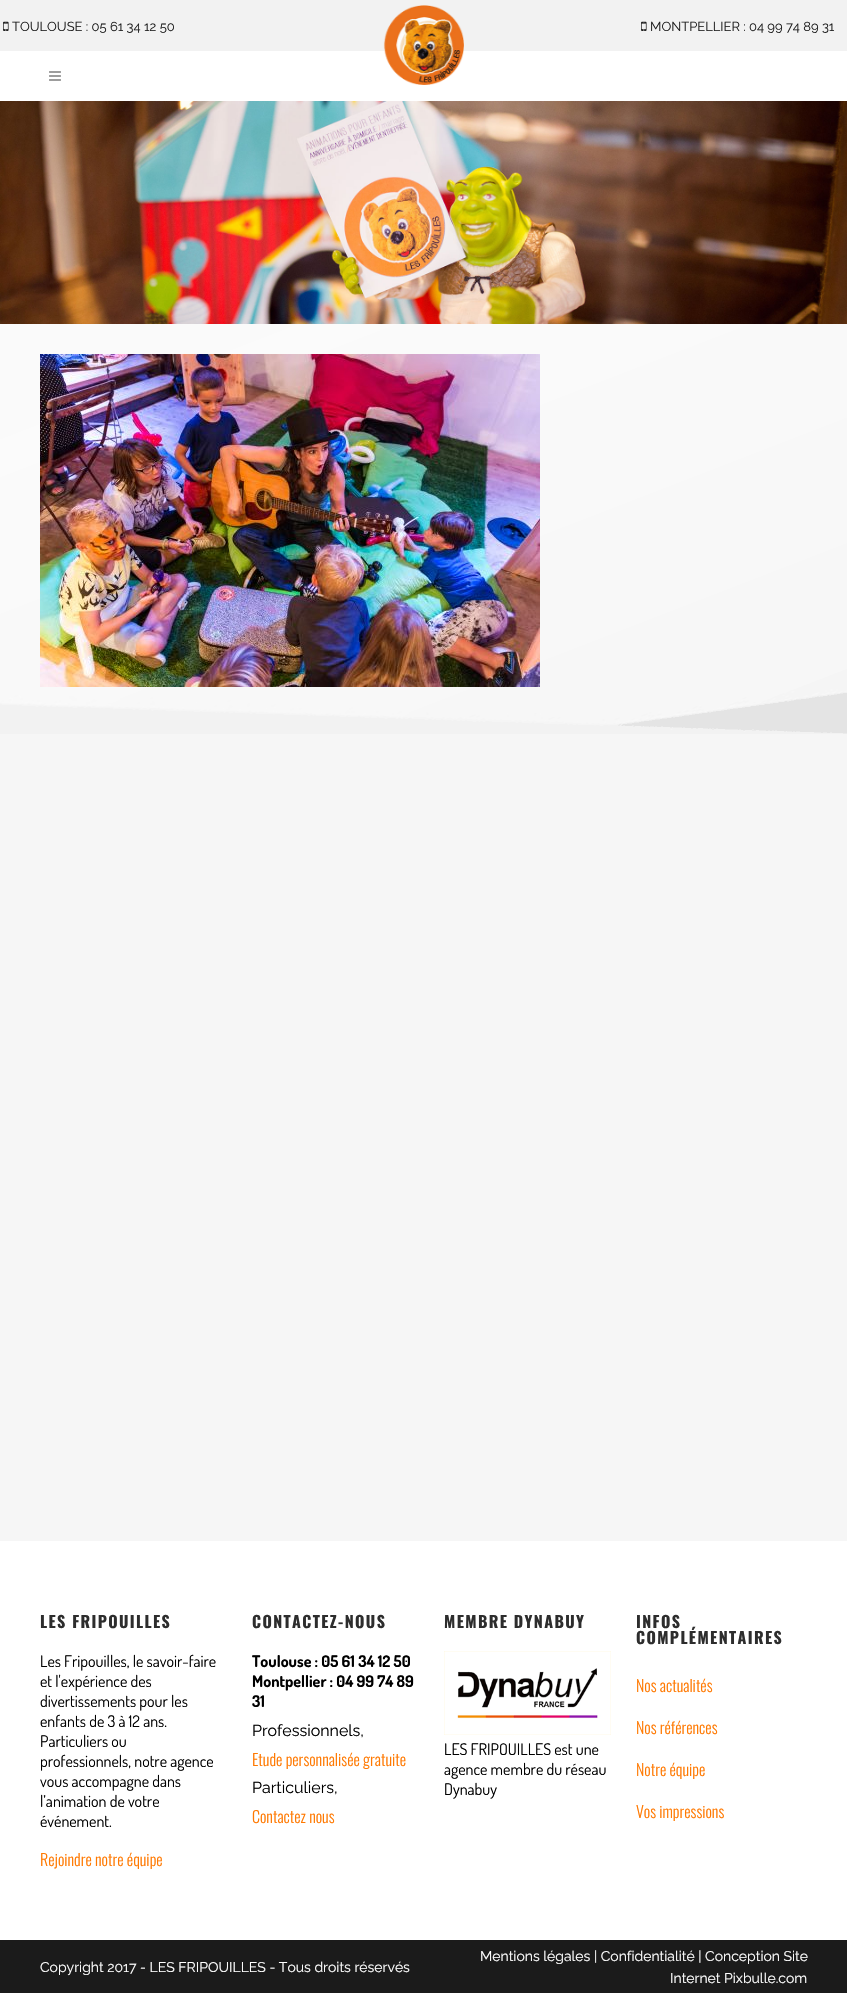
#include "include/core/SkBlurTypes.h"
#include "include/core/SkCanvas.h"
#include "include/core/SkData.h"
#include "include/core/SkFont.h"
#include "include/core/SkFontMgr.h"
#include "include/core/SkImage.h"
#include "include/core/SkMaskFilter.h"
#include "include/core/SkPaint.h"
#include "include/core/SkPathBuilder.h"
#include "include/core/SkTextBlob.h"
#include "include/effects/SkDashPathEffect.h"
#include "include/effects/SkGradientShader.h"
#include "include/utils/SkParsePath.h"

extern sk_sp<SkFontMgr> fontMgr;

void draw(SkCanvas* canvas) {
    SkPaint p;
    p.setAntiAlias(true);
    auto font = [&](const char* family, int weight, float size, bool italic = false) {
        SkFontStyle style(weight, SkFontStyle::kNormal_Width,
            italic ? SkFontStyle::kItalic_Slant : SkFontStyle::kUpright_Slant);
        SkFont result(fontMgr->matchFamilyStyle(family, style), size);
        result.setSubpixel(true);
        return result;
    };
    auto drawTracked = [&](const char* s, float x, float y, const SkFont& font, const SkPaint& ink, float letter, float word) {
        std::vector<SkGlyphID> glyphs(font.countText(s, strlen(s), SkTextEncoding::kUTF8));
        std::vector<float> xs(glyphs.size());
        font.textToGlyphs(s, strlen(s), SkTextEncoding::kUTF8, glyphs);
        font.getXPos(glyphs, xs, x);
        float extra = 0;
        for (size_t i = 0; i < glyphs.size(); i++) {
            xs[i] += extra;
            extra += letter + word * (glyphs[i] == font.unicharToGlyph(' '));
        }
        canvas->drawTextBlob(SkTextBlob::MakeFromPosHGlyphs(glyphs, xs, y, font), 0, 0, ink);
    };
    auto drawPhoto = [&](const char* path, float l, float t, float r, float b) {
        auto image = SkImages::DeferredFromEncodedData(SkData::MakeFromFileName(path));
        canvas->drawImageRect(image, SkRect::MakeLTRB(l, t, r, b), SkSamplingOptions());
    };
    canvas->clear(0xFFF6F6F6);
    drawPhoto("media/1.png", 0, 324, 847, 734);
    p.setColor(0xFFFFFFFF);
    canvas->drawRect(SkRect::MakeLTRB(0, 51, 847, 101), p);
    drawPhoto("media/2.png", 49, 71, 61, 81);
    p.setColor(0xFFF2F2F2);
    canvas->drawRect(SkRect::MakeLTRB(0, 0, 847, 51), p);
    drawPhoto("media/3.png", 383, 5, 464, 85);
    drawPhoto("media/4.png", 3, 21, 9, 31);
    auto font1 = font("Raleway", 400, 13);
    p.setColor(0xFF202020);
    canvas->drawString("TOULOUSE : 05 61 34 12 50", 12, 31, font1, p);
    drawPhoto("media/4.png", 641, 21, 647, 31);
    canvas->drawString("MONTPELLIER : 04 99 74 89 31", 650, 31, font1, p);
    drawPhoto("media/5.png", 0, 101, 847, 324);
    drawPhoto("media/6.png", 40, 354, 540, 687);
    p.setColor(0xFFFFFFFF);
    canvas->drawRect(SkRect::MakeLTRB(0, 1541, 847, 1940), p);
    auto font2 = font("Oswald", 700, 16);
    p.setColor(0xFF2D2D2D);
    drawTracked("LES FRIPOUILLES", 40, 1628, font2, p, 1.4f, 0);
    auto font3 = font("Dosis", 400, 16);
    p.setColor(0xFF000000);
    {
        const struct { const char* s; float x, y; } items[] = {
            {"Les Fripouilles, le savoir-faire", 40, 1667},
            {"et l'expérience des", 40, 1687},
            {"divertissements pour les", 40, 1707},
            {"enfants de 3 à 12 ans.", 40, 1727},
            {"Particuliers ou", 40, 1747},
            {"professionnels, notre agence", 40, 1767},
            {"vous accompagne dans", 40, 1787},
            {"l’animation de votre", 40, 1807},
            {"événement.", 40, 1827},
        };
        for (auto [s, x, y] : items) {
            canvas->drawString(s, x, y, font3, p);
        }
    }
    auto font4 = font("Oswald", 300, 16);
    p.setColor(0xFFFF7901);
    canvas->drawString("Rejoindre notre équipe", 40, 1866, font4, p);
    p.setColor(0xFF2D2D2D);
    drawTracked("CONTACTEZ-NOUS", 252, 1628, font2, p, 1.4f, 0);
    auto font5 = font("Dosis", 700, 16);
    p.setColor(0xFF000000);
    {
        const struct { const char* s; float x, y; } items[] = {
            {"Toulouse : 05 61 34 12 50", 252, 1667},
            {"Montpellier : 04 99 74 89", 252, 1687},
            {"31", 252, 1707},
        };
        for (auto [s, x, y] : items) {
            canvas->drawString(s, x, y, font5, p);
        }
    }
    auto font6 = font("Raleway", 400, 16);
    canvas->drawString("Professionnels,", 252, 1736, font6, p);
    p.setColor(0xFFFF7901);
    canvas->drawString("Etude personnalisée gratuite", 252, 1766, font4, p);
    p.setColor(0xFF000000);
    canvas->drawString("Particuliers,", 252, 1793, font6, p);
    p.setColor(0xFFFF7901);
    canvas->drawString("Contactez nous", 252, 1823, font4, p);
    p.setColor(0xFF2D2D2D);
    drawTracked("MEMBRE DYNABUY", 444, 1628, font2, p, 1.4f, 0);
    drawPhoto("media/7.png", 444, 1651, 611, 1735);
    p.setColor(0xFF000000);
    {
        const struct { const char* s; float x, y; } items[] = {
            {"LES FRIPOUILLES est une", 444, 1755},
            {"agence membre du réseau", 444, 1775},
            {"Dynabuy", 444, 1795},
        };
        for (auto [s, x, y] : items) {
            canvas->drawString(s, x, y, font3, p);
        }
    }
    p.setColor(0xFF2D2D2D);
    drawTracked("INFOS", 636, 1628, font2, p, 1.4f, 0);
    drawTracked("COMPLÉMENTAIRES", 636, 1644, font2, p, 1.4f, 0);
    p.setColor(0xFFFF7901);
    {
        const struct { const char* s; float x, y; } items[] = {
            {"Nos actualités", 636, 1692},
            {"Nos références", 636, 1734},
            {"Notre équipe", 636, 1776},
            {"Vos impressions", 636, 1818},
        };
        for (auto [s, x, y] : items) {
            canvas->drawString(s, x, y, font4, p);
        }
    }
    p.setColor(0xFF1B1B1B);
    canvas->drawRect(SkRect::MakeLTRB(0, 1940, 847, 1993), p);
    auto font7 = font("Raleway", 400, 14);
    p.setColor(0xFFFFFFFF);
    {
        const struct { const char* s; float x, y; } items[] = {
            {"Copyright 2017 - LES FRIPOUILLES - Tous droits réservés", 40, 1972},
            {"Mentions légales | Confidentialité | Conception Site", 480, 1961},
            {"Internet Pixbulle.com", 670, 1983},
        };
        for (auto [s, x, y] : items) {
            canvas->drawString(s, x, y, font7, p);
        }
    }
}
